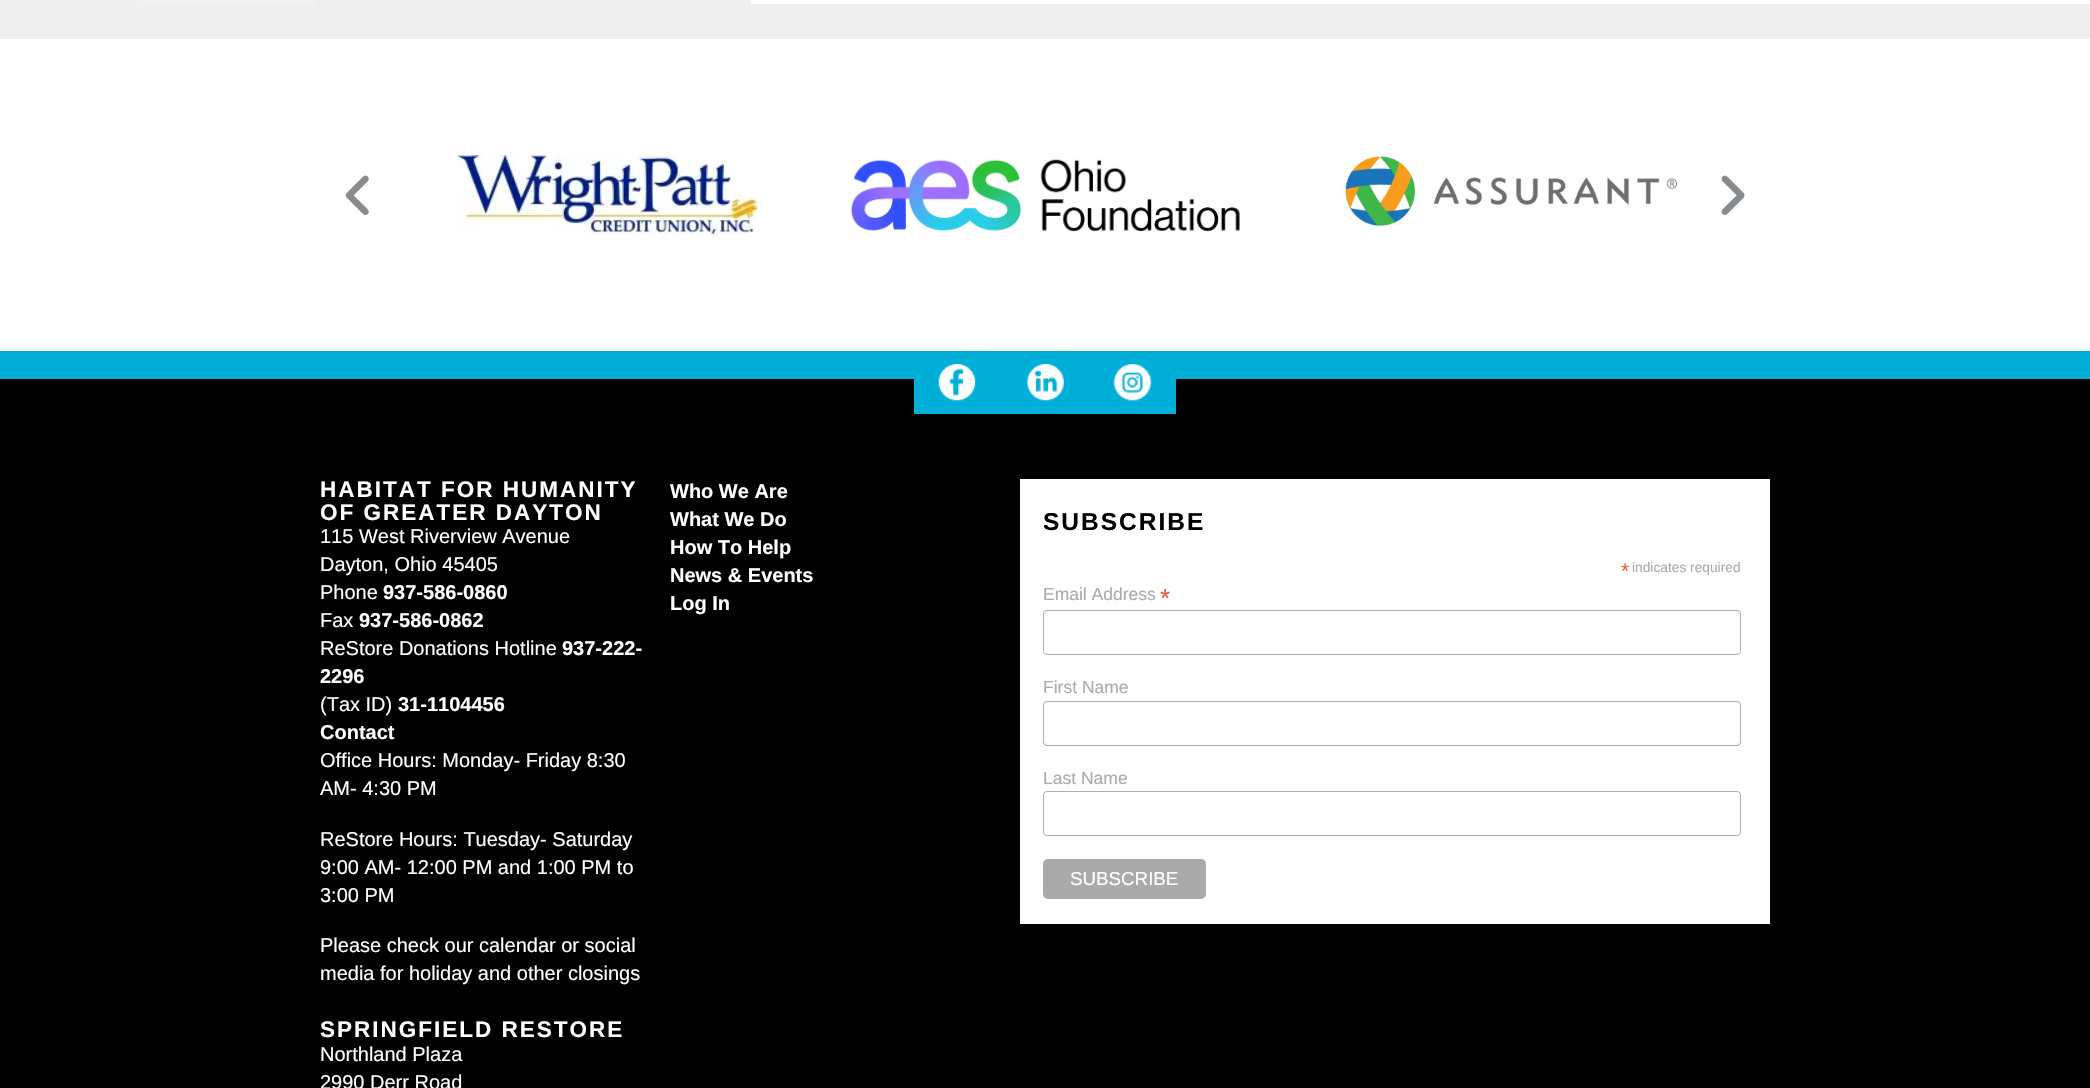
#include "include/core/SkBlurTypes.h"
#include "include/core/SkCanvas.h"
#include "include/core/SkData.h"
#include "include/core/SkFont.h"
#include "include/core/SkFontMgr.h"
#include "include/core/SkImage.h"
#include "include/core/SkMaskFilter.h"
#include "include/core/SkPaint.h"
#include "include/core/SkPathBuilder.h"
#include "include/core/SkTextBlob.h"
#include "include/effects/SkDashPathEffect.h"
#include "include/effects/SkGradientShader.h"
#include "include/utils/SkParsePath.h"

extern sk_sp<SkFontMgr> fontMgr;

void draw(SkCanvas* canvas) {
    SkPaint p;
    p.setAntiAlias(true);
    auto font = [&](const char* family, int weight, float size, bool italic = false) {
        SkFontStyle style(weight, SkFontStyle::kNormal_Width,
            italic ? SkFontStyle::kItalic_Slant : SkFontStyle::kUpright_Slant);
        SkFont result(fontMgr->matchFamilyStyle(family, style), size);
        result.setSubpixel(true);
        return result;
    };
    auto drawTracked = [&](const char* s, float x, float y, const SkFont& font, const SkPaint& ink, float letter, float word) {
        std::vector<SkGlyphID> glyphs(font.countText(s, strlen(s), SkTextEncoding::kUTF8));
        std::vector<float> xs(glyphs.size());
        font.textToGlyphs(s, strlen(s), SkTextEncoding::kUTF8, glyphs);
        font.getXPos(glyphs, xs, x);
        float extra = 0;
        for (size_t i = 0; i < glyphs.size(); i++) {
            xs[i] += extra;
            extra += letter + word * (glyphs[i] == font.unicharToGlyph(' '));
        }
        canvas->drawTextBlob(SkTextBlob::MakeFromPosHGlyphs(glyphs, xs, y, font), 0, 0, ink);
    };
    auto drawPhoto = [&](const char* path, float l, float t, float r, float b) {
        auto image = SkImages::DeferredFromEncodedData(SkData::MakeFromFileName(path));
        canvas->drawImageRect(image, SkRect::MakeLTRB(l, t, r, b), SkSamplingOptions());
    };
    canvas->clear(0xFFFFFFFF);
    {
        const SkColor colors[] = {0xFFEFEFEF, 0xFFFFFFFF};
        const float stops[] = {0.02f, 0.53f};
        const SkPoint ends[] = {{0, -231}, {2090, -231}};
        p.setShader(SkGradientShader::MakeLinear(ends, colors, stops, 2, SkTileMode::kClamp));
        p.setAlpha(255);
    }
    canvas->drawRect(SkRect::MakeLTRB(0, 0, 941, 4), p);
    p.setShader(nullptr);
    {
        const struct { float l, t, r, b; SkColor color; } items[] = {
            {314, 0, 751, 4, 0xFFEFEFEF},
            {751, 0, 941, 4, 0xFFFFFFFF},
            {0, 4, 2090, 39, 0xFFEFEFEF},
        };
        for (auto [l, t, r, b, color] : items) {
            p.setColor(color);
            canvas->drawRect(SkRect::MakeLTRB(l, t, r, b), p);
        }
    }
    drawPhoto("media/1.png", 457, 155, 758, 234);
    drawPhoto("media/2.png", 850, 159, 1240, 232);
    drawPhoto("media/3.png", 1345, 156, 1678, 226);
    drawPhoto("media/4.png", 345, 175, 369, 215);
    drawPhoto("media/5.png", 1721, 175, 1745, 215);
    {
        const struct { float l, t, r, b; SkColor color; } items[] = {
            {0, 351, 2090, 379, 0xFF00AFD7},
            {0, 379, 2090, 1088, 0xFF000000},
            {914, 379, 1176, 414, 0xFF00AFD7},
        };
        for (auto [l, t, r, b, color] : items) {
            p.setColor(color);
            canvas->drawRect(SkRect::MakeLTRB(l, t, r, b), p);
        }
    }
    drawPhoto("media/6.png", 938, 364, 976, 401);
    drawPhoto("media/7.png", 1027, 364, 1064, 401);
    drawPhoto("media/8.png", 1113, 364, 1152, 401);
    auto font1 = font("Liberation Sans", 700, 22.5f);
    p.setColor(0xFFFFFFFF);
    drawTracked("HABITAT FOR HUMANITY", 320, 497, font1, p, 2, 0);
    drawTracked("OF GREATER DAYTON", 320, 520, font1, p, 2, 0);
    auto font2 = font("Liberation Sans", 400, 20);
    {
        const struct { const char* s; float x, y; } items[] = {
            {"115 West Riverview Avenue", 320, 543},
            {"Dayton, Ohio 45405", 320, 571},
            {"Phone", 320, 599},
        };
        for (auto [s, x, y] : items) {
            canvas->drawString(s, x, y, font2, p);
        }
    }
    auto font3 = font("Liberation Sans", 700, 20);
    canvas->drawString("937-586-0860", 383, 599, font3, p);
    canvas->drawString("Fax", 320, 627, font2, p);
    canvas->drawString("937-586-0862", 359, 627, font3, p);
    canvas->drawString("ReStore Donations Hotline", 320, 655, font2, p);
    canvas->drawString("937-222-", 562, 655, font3, p);
    canvas->drawString("2296", 320, 683, font3, p);
    canvas->drawString("(Tax ID)", 320, 711, font2, p);
    canvas->drawString("31-1104456", 398, 711, font3, p);
    canvas->drawString("Contact", 320, 739, font3, p);
    {
        const struct { const char* s; float x, y; } items[] = {
            {"Office Hours: Monday- Friday 8:30", 320, 767},
            {"AM- 4:30 PM", 320, 795},
            {"ReStore Hours: Tuesday- Saturday", 320, 846},
            {"9:00 AM- 12:00 PM and 1:00 PM to", 320, 874},
            {"3:00 PM", 320, 902},
            {"Please check our calendar or social", 320, 952},
            {"media for holiday and other closings", 320, 980},
        };
        for (auto [s, x, y] : items) {
            canvas->drawString(s, x, y, font2, p);
        }
    }
    drawTracked("SPRINGFIELD RESTORE", 320, 1037, font1, p, 2, 0);
    canvas->drawString("Northland Plaza", 320, 1061, font2, p);
    canvas->drawString("2990 Derr Road", 320, 1089, font2, p);
    {
        const struct { const char* s; float x, y; } items[] = {
            {"Who We Are", 670, 498},
            {"What We Do", 670, 526},
            {"How To Help", 670, 554},
            {"News & Events", 670, 582},
            {"Log In", 670, 610},
        };
        for (auto [s, x, y] : items) {
            canvas->drawString(s, x, y, font3, p);
        }
    }
    canvas->drawRect(SkRect::MakeLTRB(1020, 479, 1770, 924), p);
    auto font4 = font("Liberation Sans", 700, 24.5f);
    p.setColor(0xFF000000);
    drawTracked("SUBSCRIBE", 1043, 530, font4, p, 2, 0);
    auto font5 = font("Liberation Sans", 400, 21);
    p.setColor(0xFFE85C41);
    canvas->drawString("*", 1621, 578, font5, p);
    auto font6 = font("Liberation Sans", 400, 13.75f);
    p.setColor(0xFFABABAB);
    canvas->drawString("indicates required", 1632, 572, font6, p);
    auto font7 = font("Liberation Sans", 400, 17.5f);
    canvas->drawString("Email Address", 1043, 600, font7, p);
    auto font8 = font("Liberation Sans", 400, 26);
    p.setColor(0xFFE85C41);
    canvas->drawString("*", 1160, 607, font8, p);
    p.setStyle(SkPaint::kStroke_Style);
    p.setStrokeWidth(1);
    p.setColor(0xFFABB0B2);
    canvas->drawRoundRect(SkRect::MakeLTRB(1043.5f, 610.5f, 1740.5f, 654.5f), 3.5f, 3.5f, p);
    p.setStyle(SkPaint::kFill_Style);
    p.setColor(0xFFABABAB);
    canvas->drawString("First Name", 1043, 693, font7, p);
    p.setStyle(SkPaint::kStroke_Style);
    p.setColor(0xFFABB0B2);
    canvas->drawRoundRect(SkRect::MakeLTRB(1043.5f, 701.5f, 1740.5f, 745.5f), 3.5f, 3.5f, p);
    p.setStyle(SkPaint::kFill_Style);
    p.setColor(0xFFABABAB);
    canvas->drawString("Last Name", 1043, 784, font7, p);
    p.setStyle(SkPaint::kStroke_Style);
    p.setColor(0xFFABB0B2);
    canvas->drawRoundRect(SkRect::MakeLTRB(1043.5f, 791.5f, 1740.5f, 835.5f), 3.5f, 3.5f, p);
    p.setStyle(SkPaint::kFill_Style);
    p.setColor(0xFFAAAAAA);
    canvas->drawRoundRect(SkRect::MakeLTRB(1043, 859, 1206, 899), 5, 5, p);
    auto font9 = font("Liberation Sans", 400, 18.75f);
    p.setColor(0xFFFFFFFF);
    canvas->drawString("SUBSCRIBE", 1070, 885, font9, p);
}
